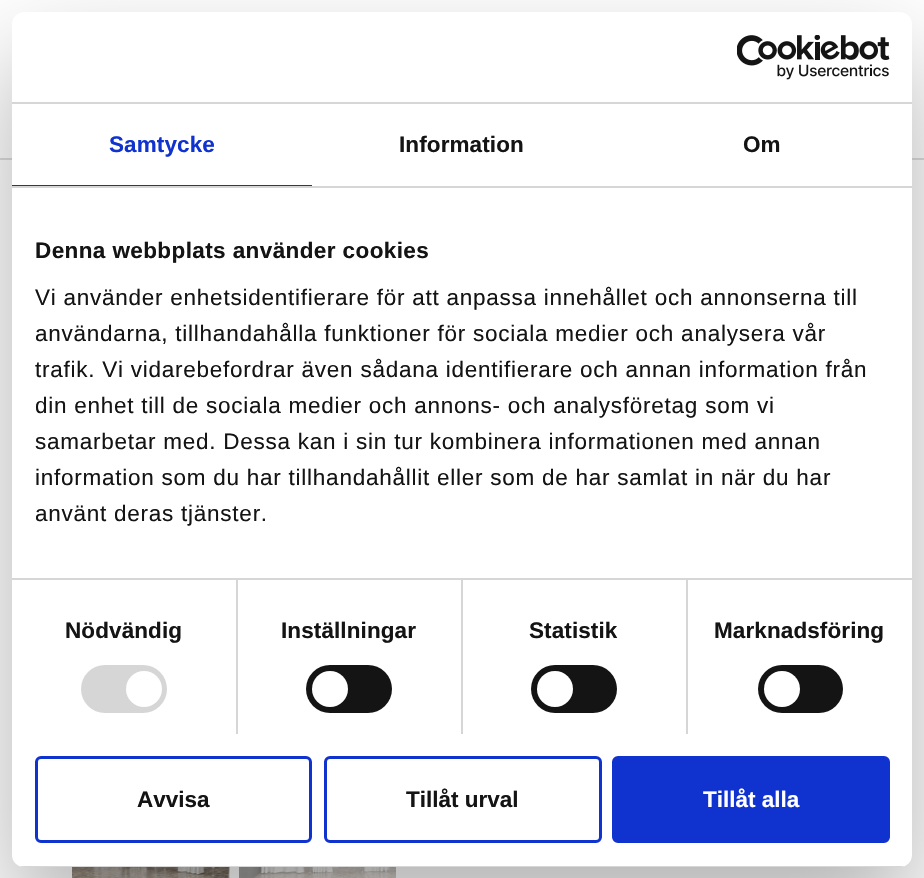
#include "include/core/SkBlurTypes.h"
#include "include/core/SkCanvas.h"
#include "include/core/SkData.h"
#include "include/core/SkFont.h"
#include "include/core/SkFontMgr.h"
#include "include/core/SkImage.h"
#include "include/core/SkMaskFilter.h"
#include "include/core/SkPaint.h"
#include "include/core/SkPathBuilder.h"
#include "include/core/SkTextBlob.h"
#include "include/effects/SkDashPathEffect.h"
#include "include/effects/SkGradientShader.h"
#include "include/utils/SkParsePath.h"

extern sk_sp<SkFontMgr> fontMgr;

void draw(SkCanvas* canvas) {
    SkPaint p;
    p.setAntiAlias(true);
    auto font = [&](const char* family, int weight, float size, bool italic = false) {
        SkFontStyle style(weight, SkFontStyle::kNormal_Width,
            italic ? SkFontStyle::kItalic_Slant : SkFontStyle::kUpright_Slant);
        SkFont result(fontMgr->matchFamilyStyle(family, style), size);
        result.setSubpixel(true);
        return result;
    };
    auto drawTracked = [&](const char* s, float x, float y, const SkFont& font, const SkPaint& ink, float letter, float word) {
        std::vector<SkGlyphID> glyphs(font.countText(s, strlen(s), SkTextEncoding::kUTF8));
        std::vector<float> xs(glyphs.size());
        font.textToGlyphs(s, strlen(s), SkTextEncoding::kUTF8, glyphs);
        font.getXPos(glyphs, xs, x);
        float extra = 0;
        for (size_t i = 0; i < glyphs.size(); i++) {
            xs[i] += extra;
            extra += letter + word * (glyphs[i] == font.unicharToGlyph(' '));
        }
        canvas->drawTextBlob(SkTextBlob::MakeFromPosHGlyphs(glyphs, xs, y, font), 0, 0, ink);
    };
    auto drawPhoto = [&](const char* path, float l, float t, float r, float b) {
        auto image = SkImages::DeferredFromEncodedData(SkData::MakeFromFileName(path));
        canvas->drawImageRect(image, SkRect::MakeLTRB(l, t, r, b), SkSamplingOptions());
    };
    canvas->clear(0xFFFFFFFF);
    p.setColor(0xFFDDDDDD);
    canvas->drawRect(SkRect::MakeLTRB(0, 158, 924, 160), p);
    drawPhoto("media/2.png", 72, 867, 230, 878);
    drawPhoto("media/3.png", 239, 867, 396, 878);
    p.setColor(0x4D000000);
    p.setMaskFilter(SkMaskFilter::MakeBlur(kNormal_SkBlurStyle, 51));
    canvas->drawRoundRect(SkRect::MakeLTRB(12, 60, 912, 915), 12, 12, p);
    p.setMaskFilter(nullptr);
    p.setColor(0xFFFFFFFF);
    canvas->drawRoundRect(SkRect::MakeLTRB(12, 12, 912, 867), 12, 12, p);
    p.setColor(0xFFD6D6D6);
    canvas->drawRect(SkRect::MakeLTRB(12, 102, 912, 104), p);
    drawPhoto("media/1.png", 737, 35, 890, 80);
    canvas->drawRect(SkRect::MakeLTRB(12, 186, 912, 188), p);
    p.setColor(0xFF1032CF);
    canvas->drawRect(SkRect::MakeLTRB(12, 185, 312, 186), p);
    auto font1 = font("Liberation Sans", 700, 22.5f);
    drawTracked("Samtycke", 109, 152, font1, p, 0.1f, 0);
    p.setColor(0xFF141414);
    drawTracked("Information", 399, 152, font1, p, 0.1f, 0);
    drawTracked("Om", 743, 152, font1, p, 0.1f, 0);
    {
        const struct { float l, t, r, b; SkColor color; } items[] = {
            {236, 579, 238, 734, 0xFFD6D6D6},
            {461, 579, 463, 734, 0xFFD6D6D6},
            {686, 579, 688, 734, 0xFFD6D6D6},
            {12, 578, 912, 580, 0xFFD6D6D6},
        };
        for (auto [l, t, r, b, color] : items) {
            p.setColor(color);
            canvas->drawRect(SkRect::MakeLTRB(l, t, r, b), p);
        }
    }
    p.setColor(0xFF141414);
    drawTracked("Denna webbplats använder cookies", 35, 258, font1, p, 0.4f, 0);
    auto font2 = font("Liberation Sans", 400, 22.5f);
    {
        const struct { const char* s; float x, y; } items[] = {
            {"Vi använder enhetsidentifierare för att anpassa innehållet och annonserna till", 35, 305},
            {"användarna, tillhandahålla funktioner för sociala medier och analysera vår", 35, 341},
            {"trafik. Vi vidarebefordrar även sådana identifierare och annan information från", 35, 377},
            {"din enhet till de sociala medier och annons- och analysföretag som vi", 35, 413},
            {"samarbetar med. Dessa kan i sin tur kombinera informationen med annan", 35, 449},
            {"information som du har tillhandahållit eller som de har samlat in när du har", 35, 485},
            {"använt deras tjänster.", 35, 521},
        };
        for (auto [s, x, y] : items) {
            drawTracked(s, x, y, font2, p, 0.75f, 0);
        }
    }
    drawTracked("Nödvändig", 65, 638, font1, p, 0.1f, 0);
    p.setColor(0xFFD6D6D6);
    canvas->drawRoundRect(SkRect::MakeLTRB(81, 665, 167, 713), 24, 24, p);
    p.setColor(0xFFFFFFFF);
    canvas->drawCircle(144, 689, 18, p);
    p.setColor(0xFF141414);
    drawTracked("Inställningar", 281, 638, font1, p, 0.1f, 0);
    canvas->drawRoundRect(SkRect::MakeLTRB(306, 665, 392, 713), 24, 24, p);
    p.setColor(0xFFFFFFFF);
    canvas->drawCircle(330, 689, 18, p);
    p.setColor(0xFF141414);
    drawTracked("Statistik", 529, 638, font1, p, 0.1f, 0);
    canvas->drawRoundRect(SkRect::MakeLTRB(531, 665, 617, 713), 24, 24, p);
    p.setColor(0xFFFFFFFF);
    canvas->drawCircle(555, 689, 18, p);
    p.setColor(0xFF141414);
    drawTracked("Marknadsföring", 714, 638, font1, p, 0.1f, 0);
    canvas->drawRoundRect(SkRect::MakeLTRB(758, 665, 843, 713), 24, 24, p);
    p.setColor(0xFFFFFFFF);
    canvas->drawCircle(782, 689, 18, p);
    canvas->save();
    canvas->clipPath(SkPathBuilder().moveTo(24, 12).lineTo(900, 12).cubicTo(906.5f, 12, 912, 17.5f, 912, 24).lineTo(912, 855).cubicTo(912, 861.5f, 906.5f, 867, 900, 867).lineTo(24, 867).cubicTo(17.5f, 867, 12, 861.5f, 12, 855).lineTo(12, 24).cubicTo(12, 17.5f, 17.5f, 12, 24, 12).close().detach(), true);
    p.setColor(0xFFD6D6D6);
    canvas->drawRect(SkRect::MakeLTRB(12, 866, 912, 867), p);
    canvas->restore();
    p.setStyle(SkPaint::kStroke_Style);
    p.setStrokeWidth(3);
    p.setColor(0xFF1032CF);
    canvas->drawRoundRect(SkRect::MakeLTRB(36.5f, 757.5f, 310.5f, 841.5f), 4.5f, 4.5f, p);
    p.setStyle(SkPaint::kFill_Style);
    p.setColor(0xFF141414);
    canvas->drawString("Avvisa", 137, 807, font1, p);
    p.setStyle(SkPaint::kStroke_Style);
    p.setColor(0xFF1032CF);
    canvas->drawRoundRect(SkRect::MakeLTRB(325.5f, 757.5f, 600.5f, 841.5f), 4.5f, 4.5f, p);
    p.setStyle(SkPaint::kFill_Style);
    p.setColor(0xFF141414);
    canvas->drawString("Tillåt urval", 406, 807, font1, p);
    p.setColor(0xFF1032CF);
    canvas->drawRoundRect(SkRect::MakeLTRB(613.5f, 757.5f, 888.5f, 841.5f), 4.5f, 4.5f, p);
    p.setStyle(SkPaint::kStroke_Style);
    canvas->drawRoundRect(SkRect::MakeLTRB(613.5f, 757.5f, 888.5f, 841.5f), 4.5f, 4.5f, p);
    p.setStyle(SkPaint::kFill_Style);
    p.setColor(0xFFFFFFFF);
    canvas->drawString("Tillåt alla", 703, 807, font1, p);
}
